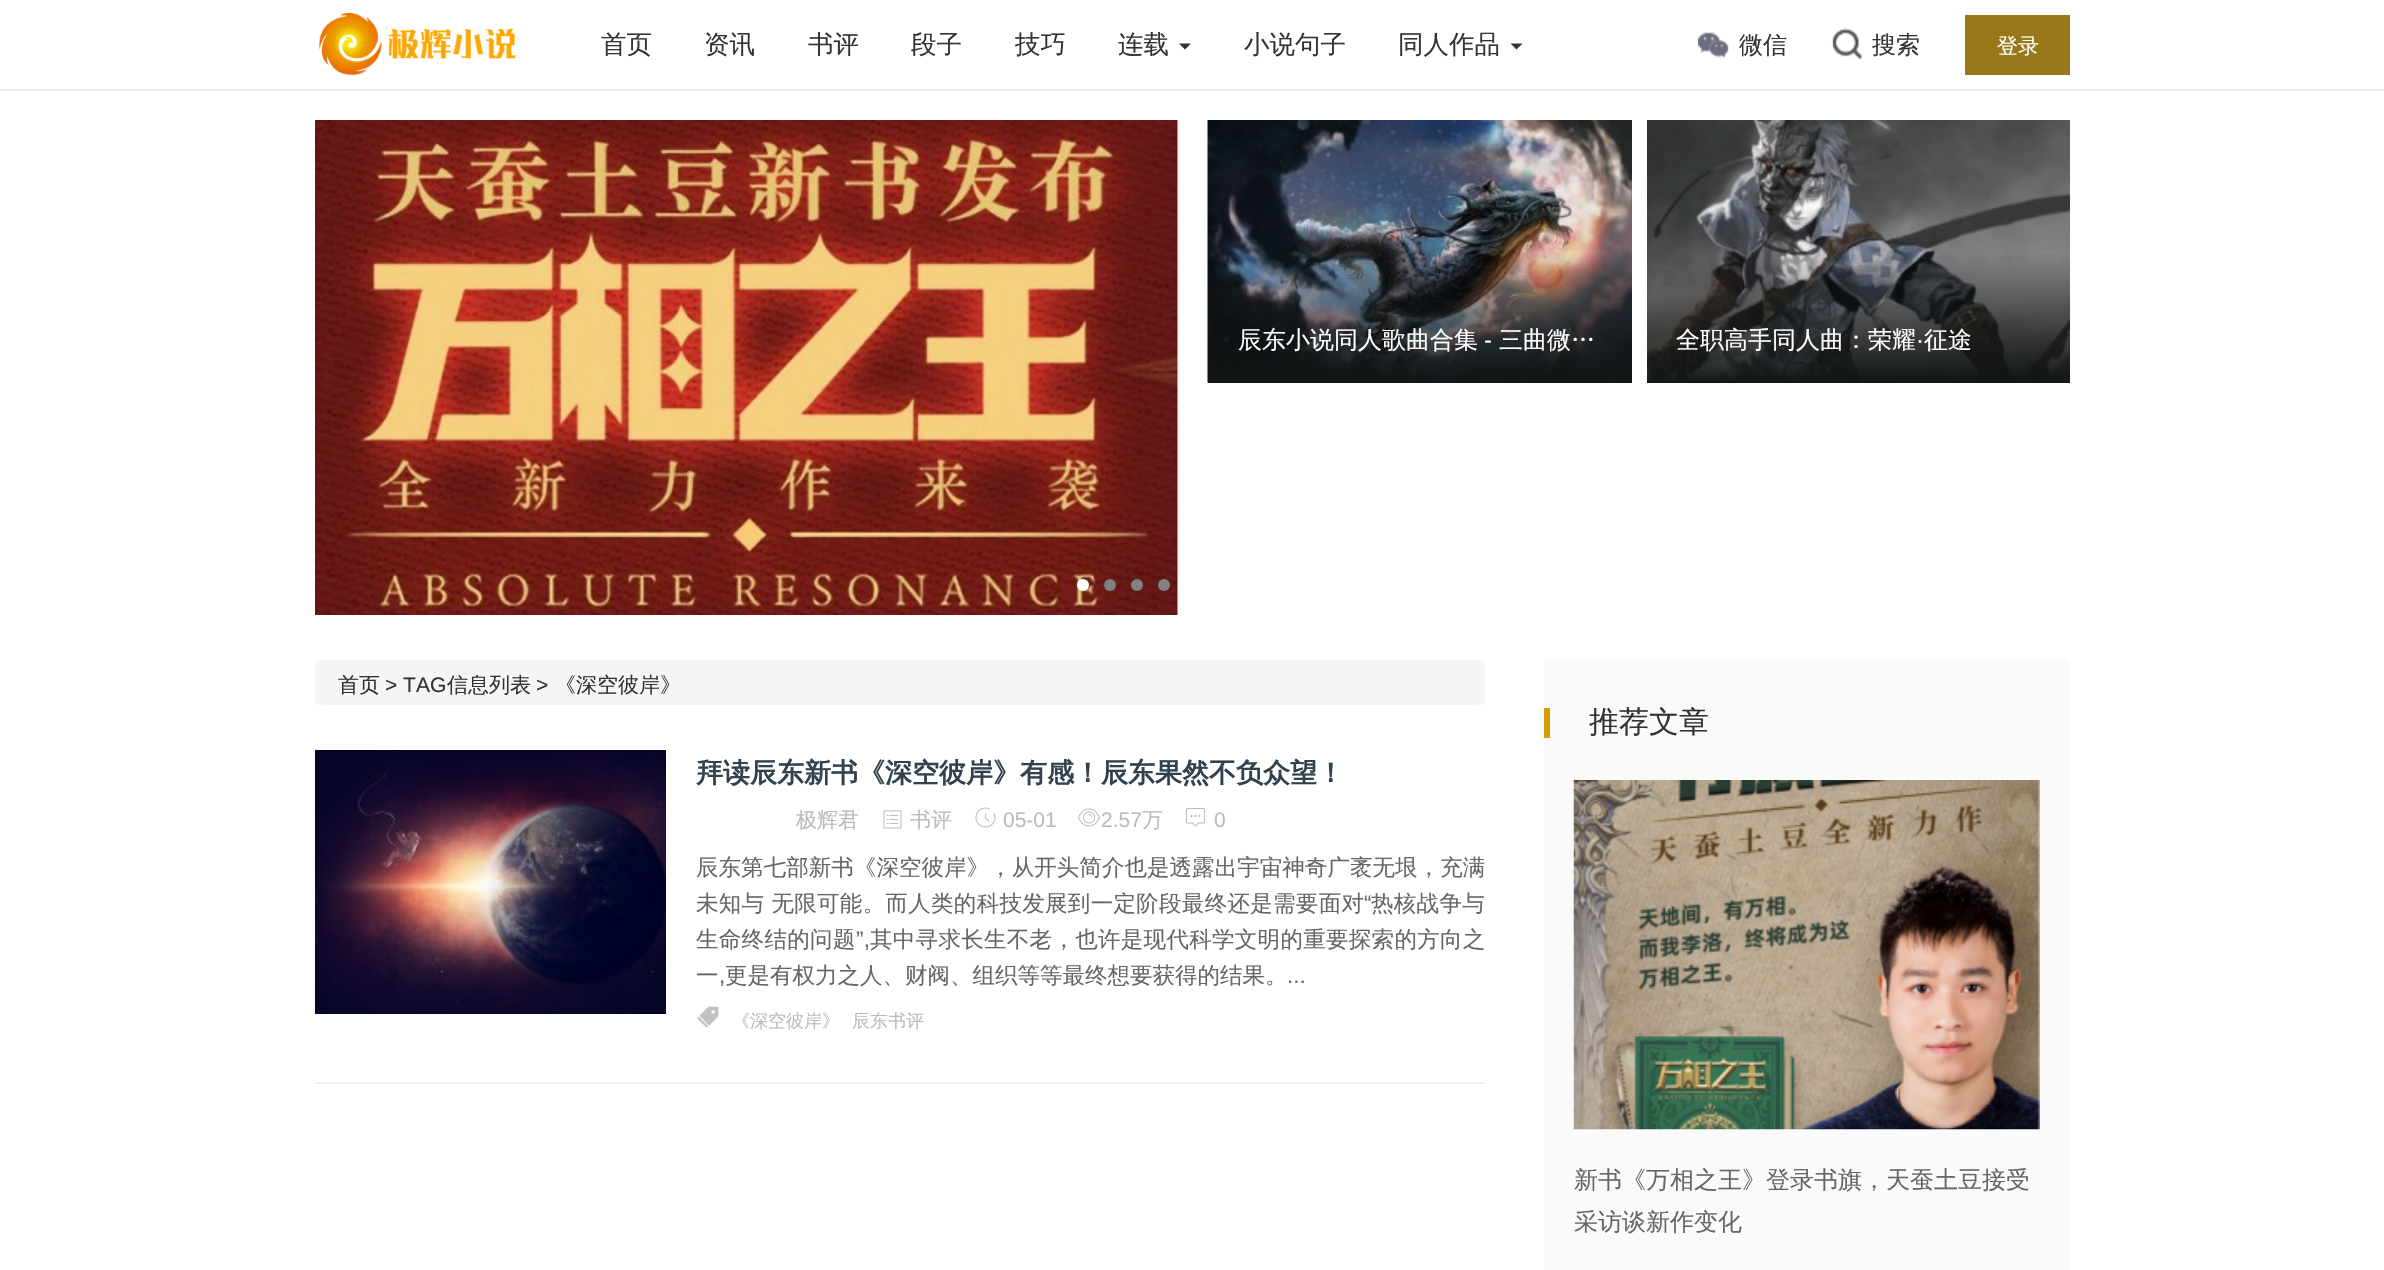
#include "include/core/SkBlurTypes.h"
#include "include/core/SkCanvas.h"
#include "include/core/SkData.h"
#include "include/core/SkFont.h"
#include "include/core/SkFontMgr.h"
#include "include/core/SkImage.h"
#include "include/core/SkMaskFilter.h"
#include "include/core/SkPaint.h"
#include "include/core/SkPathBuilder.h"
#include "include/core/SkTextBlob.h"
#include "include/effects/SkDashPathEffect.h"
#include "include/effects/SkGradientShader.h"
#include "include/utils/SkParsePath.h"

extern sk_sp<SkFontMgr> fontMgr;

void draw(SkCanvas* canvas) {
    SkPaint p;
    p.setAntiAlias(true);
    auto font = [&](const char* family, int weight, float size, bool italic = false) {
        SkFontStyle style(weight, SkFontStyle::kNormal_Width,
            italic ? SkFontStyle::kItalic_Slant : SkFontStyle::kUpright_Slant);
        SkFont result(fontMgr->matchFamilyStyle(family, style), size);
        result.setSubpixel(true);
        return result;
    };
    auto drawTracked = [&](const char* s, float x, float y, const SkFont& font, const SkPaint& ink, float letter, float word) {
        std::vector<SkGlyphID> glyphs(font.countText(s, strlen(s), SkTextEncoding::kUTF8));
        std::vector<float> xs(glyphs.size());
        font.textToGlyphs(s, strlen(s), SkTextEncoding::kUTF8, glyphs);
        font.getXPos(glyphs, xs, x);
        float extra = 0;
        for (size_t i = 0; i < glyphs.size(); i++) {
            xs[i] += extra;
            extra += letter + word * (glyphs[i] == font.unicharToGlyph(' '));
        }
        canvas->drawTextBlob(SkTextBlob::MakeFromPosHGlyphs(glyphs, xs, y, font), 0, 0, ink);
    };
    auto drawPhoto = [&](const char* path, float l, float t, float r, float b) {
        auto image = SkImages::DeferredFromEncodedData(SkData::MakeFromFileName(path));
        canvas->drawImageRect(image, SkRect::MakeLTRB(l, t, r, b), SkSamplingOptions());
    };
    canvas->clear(0xFFFFFFFF);
    p.setColor(0xFFF0F0F0);
    canvas->drawRect(SkRect::MakeLTRB(0, 89, 2384, 91), p);
    drawPhoto("media/1.png", 318, 12, 517, 76);
    auto font1 = font("WenQuanYi Zen Hei", 500, 25.5f);
    p.setColor(0xFF333333);
    {
        const struct { const char* s; float x, y; } items[] = {
            {"首页", 601, 53},
            {"资讯", 704, 53},
            {"书评", 808, 53},
            {"段子", 911, 53},
            {"技巧", 1015, 53},
            {"连载", 1118, 53},
        };
        for (auto [s, x, y] : items) {
            canvas->drawString(s, x, y, font1, p);
        }
    }
    canvas->drawPath(SkPathBuilder().moveTo(1179, 43.5f).lineTo(1191, 43.5f).lineTo(1185, 49.5f).close().detach(), p);
    canvas->drawString("小说句子", 1244, 53, font1, p);
    canvas->drawString("同人作品", 1398, 53, font1, p);
    canvas->drawPath(SkPathBuilder().moveTo(1510.5f, 43.5f).lineTo(1522.5f, 43.5f).lineTo(1516.5f, 49.5f).close().detach(), p);
    drawPhoto("media/2.png", 1698, 32, 1729, 58);
    auto font2 = font("WenQuanYi Zen Hei", 500, 24);
    canvas->drawString("微信", 1739, 53, font2, p);
    drawPhoto("media/3.png", 1831, 28, 1862, 60);
    canvas->drawString("搜索", 1872, 53, font2, p);
    p.setColor(0xFF987818);
    canvas->drawRect(SkRect::MakeLTRB(1965, 15, 2070, 75), p);
    auto font3 = font("WenQuanYi Zen Hei", 500, 21);
    p.setColor(0xFFFFFFFF);
    canvas->drawString("登录", 1997, 53, font3, p);
    drawPhoto("media/4.png", 315, 120, 1178, 615);
    canvas->drawCircle(1083, 585, 6, p);
    p.setColor(0xFF818181);
    canvas->drawCircle(1110, 585, 6, p);
    canvas->drawCircle(1137, 585, 6, p);
    canvas->drawCircle(1164, 585, 6, p);
    drawPhoto("media/5.png", 1207, 120, 1632, 383);
    {
        const SkColor colors[] = {0x00000000, 0x00121515, 0xFF121515};
        const float stops[] = {0, 0.5f, 1};
        const SkPoint ends[] = {{1420, 120}, {1420, 383}};
        p.setShader(SkGradientShader::MakeLinear(ends, colors, stops, 3, SkTileMode::kClamp));
        p.setAlpha(255);
    }
    canvas->drawRect(SkRect::MakeLTRB(1208, 254, 1632, 383), p);
    p.setShader(nullptr);
    p.setColor(0xFFFFFFFF);
    canvas->drawString("辰东小说同人歌曲合集", 1238, 348, font2, p);
    auto font4 = font("Liberation Sans", 400, 24);
    canvas->drawString("-", 1484, 348, font4, p);
    canvas->drawString("三曲微…", 1499, 348, font2, p);
    drawPhoto("media/6.png", 1647, 120, 2070, 382);
    {
        const SkColor colors[] = {0x00000000, 0x00121515, 0xFF121515};
        const float stops[] = {0, 0.5f, 1};
        const SkPoint ends[] = {{1859, 120}, {1859, 383}};
        p.setShader(SkGradientShader::MakeLinear(ends, colors, stops, 3, SkTileMode::kClamp));
        p.setAlpha(255);
    }
    canvas->drawRect(SkRect::MakeLTRB(1647, 254, 2070, 383), p);
    p.setShader(nullptr);
    p.setColor(0xFFFFFFFF);
    canvas->drawString("全职高手同人曲：荣耀", 1676, 348, font2, p);
    canvas->drawString("·", 1916, 348, font4, p);
    canvas->drawString("征途", 1924, 348, font2, p);
    p.setColor(0xFFF5F5F5);
    canvas->drawRoundRect(SkRect::MakeLTRB(315, 660, 1485, 705), 6, 6, p);
    p.setColor(0xFF333333);
    canvas->drawString("首页", 338, 692, font3, p);
    auto font5 = font("Liberation Sans", 400, 21);
    canvas->drawString("> TAG", 385, 692, font5, p);
    canvas->drawString("信息列表", 447, 692, font3, p);
    canvas->drawString(">", 536, 692, font5, p);
    canvas->drawString("《深空彼岸》", 555, 692, font3, p);
    p.setColor(0xFFF0F0F0);
    canvas->drawRect(SkRect::MakeLTRB(315, 1082, 1485, 1084), p);
    drawPhoto("media/7.png", 315, 750, 666, 1014);
    auto font6 = font("WenQuanYi Zen Hei", 700, 27);
    p.setColor(0xFF31424E);
    canvas->drawString("拜读辰东新书《深空彼岸》有感！辰东果然不负众望！", 696, 782, font6, p);
    p.setColor(0xFFBBBBBB);
    canvas->drawString("极辉君", 796, 827, font3, p);
    drawPhoto("media/8.png", 883, 810, 902, 829);
    canvas->drawString("书评", 910, 827, font3, p);
    drawPhoto("media/9.png", 975, 807, 996, 828);
    canvas->drawString("05-01", 1003, 827, font5, p);
    drawPhoto("media/10.png", 1078, 808, 1100, 827);
    canvas->drawString("2.57", 1101, 827, font5, p);
    canvas->drawString("万", 1142, 827, font3, p);
    drawPhoto("media/11.png", 1186, 808, 1205, 827);
    canvas->drawString("0", 1214, 827, font5, p);
    auto font7 = font("WenQuanYi Zen Hei", 500, 22.5f);
    p.setColor(0xFF666666);
    drawTracked("辰东第七部新书《深空彼岸》，从开头简介也是透露出宇宙神奇广袤无垠，充满", 696, 875, font7, p, 0.05f, 0);
    drawTracked("未知与 无限可能。而人类的科技发展到一定阶段最终还是需要面对", 696, 911, font7, p, 0.3f, 0);
    auto font8 = font("Liberation Sans", 400, 22.5f);
    drawTracked("“", 1364, 911, font8, p, 0.3f, 0);
    drawTracked("热核战争与", 1371, 911, font7, p, 0.3f, 0);
    drawTracked("生命终结的问题", 696, 947, font7, p, 0.3f, 0);
    drawTracked("”,", 856, 947, font8, p, 0.3f, 0);
    drawTracked("其中寻求长生不老，也许是现代科学文明的重要探索的方向之", 870, 947, font7, p, 0.3f, 0);
    canvas->drawString("一", 696, 983, font7, p);
    canvas->drawString("更是有权力之人、财阀、组织等等最终想要获得的结果。", 725, 983, font7, p);
    canvas->drawString(",", 719, 983, font8, p);
    canvas->drawString("...", 1287, 983, font8, p);
    drawPhoto("media/12.png", 697, 1006, 719, 1028);
    auto font9 = font("WenQuanYi Zen Hei", 500, 18);
    p.setColor(0xFFBBBBBB);
    canvas->drawString("《深空彼岸》", 732, 1027, font9, p);
    canvas->drawString("辰东书评", 852, 1027, font9, p);
    p.setColor(0xFFFAFAFA);
    canvas->drawRect(SkRect::MakeLTRB(1544, 660, 2070, 1270), p);
    auto font10 = font("WenQuanYi Zen Hei", 500, 30);
    p.setColor(0xFF333333);
    canvas->drawString("推荐文章", 1589, 732, font10, p);
    p.setColor(0xFFDA9C00);
    canvas->drawRect(SkRect::MakeLTRB(1544, 708, 1550, 738), p);
    drawPhoto("media/13.png", 1573, 780, 2040, 1130);
    p.setColor(0xFF666666);
    canvas->drawString("新书《万相之王》登录书旗，天蚕土豆接受", 1574, 1188, font2, p);
    canvas->drawString("采访谈新作变化", 1574, 1230, font2, p);
}
